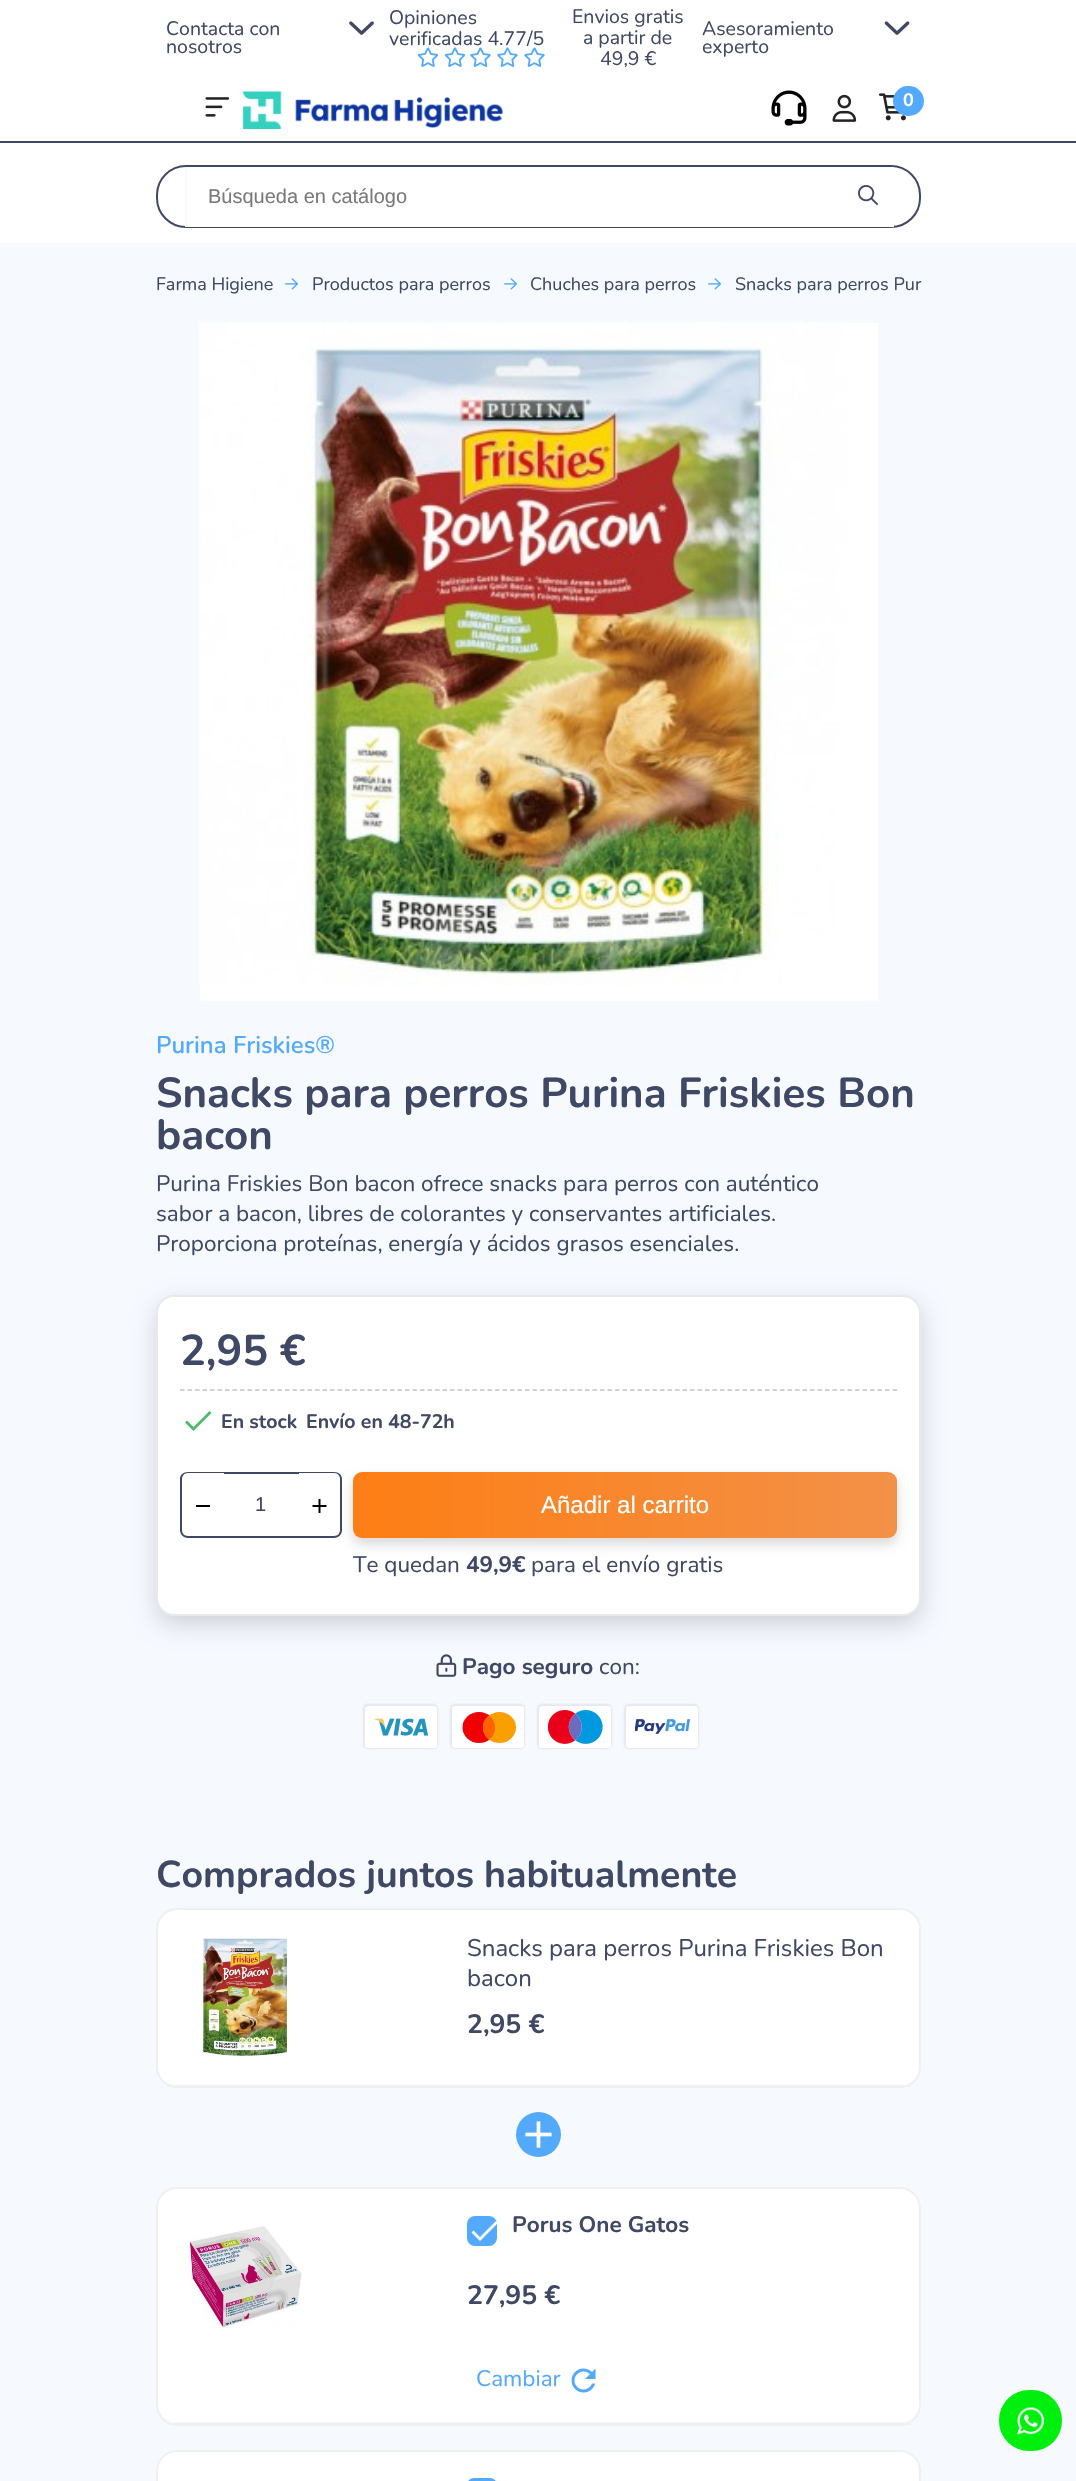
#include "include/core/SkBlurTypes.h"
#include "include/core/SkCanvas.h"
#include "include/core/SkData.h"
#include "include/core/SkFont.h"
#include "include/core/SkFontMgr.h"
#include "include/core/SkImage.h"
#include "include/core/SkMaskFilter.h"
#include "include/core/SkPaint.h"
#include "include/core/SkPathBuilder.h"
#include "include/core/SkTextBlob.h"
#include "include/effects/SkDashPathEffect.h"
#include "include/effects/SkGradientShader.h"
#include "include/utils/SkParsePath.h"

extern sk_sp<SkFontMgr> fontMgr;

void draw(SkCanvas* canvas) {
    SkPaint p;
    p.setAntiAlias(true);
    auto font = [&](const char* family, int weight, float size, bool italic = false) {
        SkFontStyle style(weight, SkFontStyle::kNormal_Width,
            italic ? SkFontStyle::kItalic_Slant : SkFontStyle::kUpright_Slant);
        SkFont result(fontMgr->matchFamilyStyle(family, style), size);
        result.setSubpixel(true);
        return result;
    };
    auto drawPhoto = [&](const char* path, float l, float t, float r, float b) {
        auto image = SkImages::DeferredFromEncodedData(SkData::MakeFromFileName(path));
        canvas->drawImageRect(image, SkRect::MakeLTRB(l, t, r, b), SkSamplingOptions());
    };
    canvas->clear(0xFFFFFFFF);
    auto font1 = font("Nunito", 400, 19.5f);
    p.setColor(0xFF3F4864);
    canvas->drawString("Contacta con", 166, 35, font1, p);
    drawPhoto("media/1.png", 349, 21, 374, 35);
    {
        const struct { const char* s; float x, y; } items[] = {
            {"nosotros", 166, 53},
            {"Opiniones", 389, 24},
            {"verificadas 4.77/5", 389, 45},
        };
        for (auto [s, x, y] : items) {
            canvas->drawString(s, x, y, font1, p);
        }
    }
    drawPhoto("media/2.png", 417, 47, 439, 67);
    drawPhoto("media/2.png", 444, 47, 466, 67);
    drawPhoto("media/3.png", 470, 47, 491, 67);
    drawPhoto("media/3.png", 497, 47, 518, 67);
    drawPhoto("media/3.png", 524, 47, 545, 67);
    {
        const struct { const char* s; float x, y; } items[] = {
            {"Envios gratis", 572, 23},
            {"a partir de", 583, 44},
            {"49,9 €", 600, 65},
            {"Asesoramiento", 702, 35},
        };
        for (auto [s, x, y] : items) {
            canvas->drawString(s, x, y, font1, p);
        }
    }
    drawPhoto("media/4.png", 884, 21, 910, 35);
    canvas->drawString("experto", 702, 53, font1, p);
    drawPhoto("media/5.png", 205, 97, 230, 117);
    drawPhoto("media/6.png", 243, 91, 503, 129);
    drawPhoto("media/7.png", 771, 90, 807, 126);
    drawPhoto("media/8.png", 832, 94, 857, 122);
    drawPhoto("media/9.png", 879, 93, 906, 121);
    p.setColor(0xFF53AAFD);
    canvas->drawRoundRect(SkRect::MakeLTRB(893, 86, 924, 116), 15, 15, p);
    auto font2 = font("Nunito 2", 700, 18);
    p.setColor(0xFFFFFFFF);
    canvas->drawString("0", 903, 106, font2, p);
    p.setColor(0xFF3F4864);
    canvas->drawRect(SkRect::MakeLTRB(0, 141, 1076, 143), p);
    p.setStyle(SkPaint::kStroke_Style);
    p.setStrokeWidth(2);
    canvas->drawRoundRect(SkRect::MakeLTRB(157, 166, 920, 227), 29, 29, p);
    p.setStyle(SkPaint::kFill_Style);
    p.setColor(0xFFFFFFFF);
    canvas->drawRect(SkRect::MakeLTRB(187, 167, 894, 227), p);
    p.setColor(0xFFF6FAFF);
    canvas->drawRect(SkRect::MakeLTRB(185, 167, 187, 227), p);
    canvas->save();
    canvas->clipRect(SkRect::MakeLTRB(209, 185, 872, 207));
    auto font3 = font("Liberation Sans", 400, 20);
    p.setColor(0xFF7A7A7A);
    canvas->drawString("Búsqueda en catálogo", 208, 203, font3, p);
    canvas->restore();
    drawPhoto("media/10.png", 858, 185, 878, 205);
    p.setColor(0xFFF6FAFF);
    canvas->drawRect(SkRect::MakeLTRB(0, 243, 1076, 2481), p);
    auto font4 = font("Nunito", 400, 18);
    p.setColor(0xFF3F4864);
    canvas->drawString("Farma Higiene", 156, 290, font4, p);
    drawPhoto("media/11.png", 285, 278, 299, 290);
    canvas->drawString("Productos para perros", 312, 290, font4, p);
    drawPhoto("media/11.png", 504, 278, 518, 290);
    canvas->drawString("Chuches para perros", 530, 290, font4, p);
    drawPhoto("media/11.png", 708, 278, 722, 290);
    canvas->drawString("Snacks para perros Pur", 735, 290, font4, p);
    p.setColor(0xFFFFFFFF);
    canvas->drawRect(SkRect::MakeLTRB(200, 323, 878, 1001), p);
    drawPhoto("media/12.png", 199, 322, 847, 986);
    auto font5 = font("Nunito", 600, 24);
    p.setColor(0xFF53AAFD);
    canvas->drawString("Purina Friskies®", 156, 1053, font5, p);
    auto font6 = font("Nunito", 700, 42);
    p.setColor(0xFF3F4864);
    canvas->drawString("Snacks para perros Purina Friskies Bon", 156, 1107, font6, p);
    canvas->drawString("bacon", 156, 1149, font6, p);
    auto font7 = font("Nunito", 400, 22.5f);
    {
        const struct { const char* s; float x, y; } items[] = {
            {"Purina Friskies Bon bacon ofrece snacks para perros con auténtico", 156, 1191},
            {"sabor a bacon, libres de colorantes y conservantes artificiales.", 156, 1221},
            {"Proporciona proteínas, energía y ácidos grasos esenciales.", 156, 1251},
        };
        for (auto [s, x, y] : items) {
            canvas->drawString(s, x, y, font7, p);
        }
    }
    p.setColor(0x2E020203);
    p.setMaskFilter(SkMaskFilter::MakeBlur(kNormal_SkBlurStyle, 12));
    canvas->drawRoundRect(SkRect::MakeLTRB(158, 1305, 920, 1623), 17, 17, p);
    p.setMaskFilter(nullptr);
    p.setColor(0xFFFFFFFF);
    canvas->drawRoundRect(SkRect::MakeLTRB(157, 1296, 920, 1615), 17, 17, p);
    p.setStyle(SkPaint::kStroke_Style);
    p.setColor(0xFFE7E9EF);
    canvas->drawRoundRect(SkRect::MakeLTRB(157, 1296, 920, 1615), 17, 17, p);
    p.setStrokeWidth(1.5f);
    p.setColor(0xFFC4C4C4);
    p.setPathEffect(SkDashPathEffect::Make({{4.5f, 3}}, 0));
    canvas->drawPath(SkPathBuilder().moveTo(180, 1390).lineTo(897, 1390).detach(), p);
    p.setPathEffect(nullptr);
    auto font8 = font("Nunito 2", 700, 43);
    p.setStyle(SkPaint::kFill_Style);
    p.setColor(0xFF3F4864);
    canvas->drawString("2,95 €", 180, 1365, font8, p);
    p.setColor(0xFF4CBB6C);
    canvas->drawPath(SkPathBuilder().moveTo(193.5f, 1427).lineTo(209.5f, 1411).lineTo(211.5f, 1413).lineTo(193.5f, 1431).lineTo(185, 1422.5f).lineTo(187, 1420.5f).close().detach(), p);
    auto font9 = font("Nunito", 700, 19.5f);
    p.setColor(0xFF3F4864);
    canvas->drawString("En stock", 221, 1428, font9, p);
    canvas->drawString("Envío en 48-72h", 306, 1428, font9, p);
    canvas->drawPath(SkPathBuilder(SkPathFillType::kEvenOdd).moveTo(188, 1472).lineTo(224, 1472).lineTo(224, 1538).lineTo(188, 1538).cubicTo(183, 1538, 180, 1534, 180, 1530).lineTo(180, 1479).cubicTo(180, 1475, 183, 1472, 188, 1472).close().moveTo(188, 1473).lineTo(224, 1473).lineTo(224, 1536).lineTo(188, 1536).cubicTo(184, 1536, 182, 1533, 182, 1530).lineTo(182, 1479).cubicTo(182, 1476, 184, 1473, 188, 1473).close().detach(), p);
    p.setColor(0xFF000000);
    canvas->drawRect(SkRect::MakeLTRB(196, 1505, 210, 1507), p);
    p.setColor(0x26000000);
    p.setMaskFilter(SkMaskFilter::MakeBlur(kNormal_SkBlurStyle, 6));
    canvas->drawRoundRect(SkRect::MakeLTRB(353, 1478, 897, 1544), 9, 9, p);
    p.setMaskFilter(nullptr);
    p.setColor(0xFF3F4864);
    canvas->drawPath(SkPathBuilder(SkPathFillType::kEvenOdd).moveTo(298, 1472).lineTo(334, 1472).cubicTo(339, 1472, 342, 1475, 342, 1479).lineTo(342, 1530).cubicTo(342, 1534, 339, 1538, 334, 1538).lineTo(298, 1538).close().moveTo(298, 1473).lineTo(334, 1473).cubicTo(338, 1473, 340, 1476, 340, 1479).lineTo(340, 1530).cubicTo(340, 1533, 338, 1536, 334, 1536).lineTo(298, 1536).close().detach(), p);
    drawPhoto("media/13.png", 312, 1499, 327, 1513);
    canvas->drawRect(SkRect::MakeLTRB(224, 1472, 299, 1474), p);
    canvas->drawRect(SkRect::MakeLTRB(224, 1536, 299, 1538), p);
    canvas->drawString("1", 255, 1511, font3, p);
    {
        const SkColor colors[] = {0xFFFD7E14, 0xFFEF995E, 0xFFFD7E14};
        const float stops[] = {0, 0.71f, 1};
        const SkPoint ends[] = {{353, 1505}, {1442, 1505}};
        p.setShader(SkGradientShader::MakeLinear(ends, colors, stops, 3, SkTileMode::kClamp));
        p.setAlpha(255);
    }
    canvas->drawRoundRect(SkRect::MakeLTRB(353, 1472, 897, 1538), 9, 9, p);
    auto font10 = font("Liberation Sans", 400, 24);
    p.setShader(nullptr);
    p.setColor(0xFFFFFFFF);
    canvas->drawString("Añadir al carrito", 541, 1513, font10, p);
    p.setColor(0xFF3F4864);
    canvas->drawString("Te quedan", 353, 1572, font7, p);
    auto font11 = font("Nunito", 700, 22.5f);
    canvas->drawString("49,9€", 466, 1572, font11, p);
    canvas->drawString("para el envío gratis", 531, 1572, font7, p);
    drawPhoto("media/14.png", 436, 1654, 457, 1677);
    canvas->drawString("Pago seguro", 462, 1674, font11, p);
    canvas->drawString("con:", 599, 1674, font7, p);
    p.setColor(0xFFE4E7EE);
    p.setMaskFilter(SkMaskFilter::MakeBlur(kNormal_SkBlurStyle, 1));
    canvas->drawRoundRect(SkRect::MakeLTRB(363, 1704, 438, 1749), 5, 5, p);
    p.setMaskFilter(nullptr);
    p.setColor(0xFFFFFFFF);
    canvas->drawRoundRect(SkRect::MakeLTRB(365, 1706, 437, 1748), 3, 3, p);
    drawPhoto("media/15.png", 374, 1718, 429, 1736);
    p.setColor(0xFFE4E7EE);
    p.setMaskFilter(SkMaskFilter::MakeBlur(kNormal_SkBlurStyle, 1));
    canvas->drawRoundRect(SkRect::MakeLTRB(450, 1704, 525, 1749), 5, 5, p);
    p.setMaskFilter(nullptr);
    p.setColor(0xFFFFFFFF);
    canvas->drawRoundRect(SkRect::MakeLTRB(452, 1706, 524, 1748), 3, 3, p);
    p.setColor(0xFFEE0005);
    canvas->drawOval(SkRect::MakeLTRB(462.5f, 1712, 495.5f, 1743), p);
    p.setColor(0xFFF9A000);
    canvas->drawOval(SkRect::MakeLTRB(483, 1712, 516, 1743), p);
    p.setColor(0xFFFF6300);
    canvas->drawPath(SkPathBuilder().moveTo(483, 1727.5f).cubicTo(483, 1732.5f, 485.5f, 1737, 489, 1740).cubicTo(497, 1734, 497, 1721.5f, 489, 1715.5f).cubicTo(485.5f, 1718, 483, 1722.5f, 483, 1727.5f).close().detach(), p);
    p.setColor(0xFFE4E7EE);
    p.setMaskFilter(SkMaskFilter::MakeBlur(kNormal_SkBlurStyle, 1));
    canvas->drawRoundRect(SkRect::MakeLTRB(537, 1704, 612, 1749), 5, 5, p);
    p.setMaskFilter(nullptr);
    p.setColor(0xFFFFFFFF);
    canvas->drawRoundRect(SkRect::MakeLTRB(539, 1706, 611, 1748), 3, 3, p);
    drawPhoto("media/16.png", 548, 1710, 603, 1744);
    p.setColor(0xFFE4E7EE);
    p.setMaskFilter(SkMaskFilter::MakeBlur(kNormal_SkBlurStyle, 1));
    canvas->drawRoundRect(SkRect::MakeLTRB(624, 1704, 699, 1749), 5, 5, p);
    p.setMaskFilter(nullptr);
    p.setColor(0xFFFFFFFF);
    canvas->drawRoundRect(SkRect::MakeLTRB(626, 1706, 698, 1748), 3, 3, p);
    drawPhoto("media/17.png", 635, 1719, 690, 1734);
    auto font12 = font("Nunito", 700, 37.5f);
    p.setColor(0xFF3F4864);
    canvas->drawString("Comprados juntos habitualmente", 156, 1887, font12, p);
    p.setColor(0xFFFFFFFF);
    canvas->drawPath(SkPathBuilder().moveTo(177, 1910).lineTo(900, 1910).cubicTo(911, 1910, 920, 1918, 920, 1929).lineTo(920, 2067).cubicTo(920, 2077, 911, 2085, 900, 2085).lineTo(177, 2085).cubicTo(166, 2085, 158, 2077, 158, 2067).lineTo(158, 1929).cubicTo(158, 1918, 166, 1910, 177, 1910).close().detach(), p);
    p.setStyle(SkPaint::kStroke_Style);
    p.setStrokeWidth(2);
    p.setColor(0xFFF0F0F0);
    canvas->drawRoundRect(SkRect::MakeLTRB(157, 1909, 920, 2087), 20, 20, p);
    p.setStyle(SkPaint::kFill_Style);
    canvas->drawRect(SkRect::MakeLTRB(167, 2085, 911, 2087), p);
    drawPhoto("media/18.png", 198, 1936, 288, 2057);
    auto font13 = font("Nunito", 400, 24);
    p.setColor(0xFF3F4864);
    canvas->drawString("Snacks para perros Purina Friskies Bon", 467, 1956, font13, p);
    canvas->drawString("bacon", 467, 1986, font13, p);
    auto font14 = font("Nunito", 700, 26.5f);
    canvas->drawString("2,95 €", 467, 2033, font14, p);
    p.setColor(0xFF53AAFD);
    canvas->drawCircle(538.5f, 2134.5f, 22.5f, p);
    drawPhoto("media/19.png", 525, 2121, 552, 2148);
    p.setColor(0xFFFFFFFF);
    canvas->drawPath(SkPathBuilder().moveTo(177, 2188).lineTo(900, 2188).cubicTo(911, 2188, 920, 2197, 920, 2208).lineTo(920, 2404).cubicTo(920, 2414, 911, 2422, 900, 2422).lineTo(177, 2422).cubicTo(166, 2422, 158, 2414, 158, 2404).lineTo(158, 2208).cubicTo(158, 2197, 166, 2188, 177, 2188).close().detach(), p);
    p.setStyle(SkPaint::kStroke_Style);
    p.setColor(0xFFF0F0F0);
    canvas->drawRoundRect(SkRect::MakeLTRB(157, 2188, 920, 2425), 20, 20, p);
    p.setStyle(SkPaint::kFill_Style);
    canvas->drawRect(SkRect::MakeLTRB(167, 2423, 911, 2425), p);
    drawPhoto("media/20.png", 189, 2226, 302, 2329);
    p.setColor(0xFF53AAFD);
    canvas->drawRoundRect(SkRect::MakeLTRB(468.5f, 2217.5f, 495.5f, 2244.5f), 6.5f, 6.5f, p);
    p.setStyle(SkPaint::kStroke_Style);
    p.setStrokeWidth(3);
    canvas->drawRoundRect(SkRect::MakeLTRB(468.5f, 2217.5f, 495.5f, 2244.5f), 6.5f, 6.5f, p);
    p.setStyle(SkPaint::kFill_Style);
    p.setColor(0xFFFFFFFF);
    canvas->drawPath(SkPathBuilder().moveTo(480, 2237).lineTo(496, 2221).lineTo(498, 2223).lineTo(480, 2241).lineTo(471.5f, 2232.5f).lineTo(473.5f, 2230.5f).close().detach(), p);
    p.setColor(0xFF3F4864);
    canvas->drawString("Porus One Gatos", 512, 2232, font11, p);
    canvas->drawString("27,95 €", 467, 2304, font14, p);
    p.setColor(0xFF53AAFD);
    canvas->drawString("Cambiar", 476, 2386, font7, p);
    drawPhoto("media/21.png", 571, 2368, 596, 2393);
    p.setColor(0xFFFFFFFF);
    canvas->drawPath(SkPathBuilder().moveTo(177, 2451).lineTo(900, 2451).cubicTo(911, 2451, 920, 2460, 920, 2470).lineTo(920, 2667).cubicTo(920, 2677, 911, 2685, 900, 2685).lineTo(177, 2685).cubicTo(166, 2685, 158, 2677, 158, 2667).lineTo(158, 2470).cubicTo(158, 2460, 166, 2451, 177, 2451).close().detach(), p);
    p.setStyle(SkPaint::kStroke_Style);
    p.setStrokeWidth(2);
    p.setColor(0xFFF0F0F0);
    canvas->drawRoundRect(SkRect::MakeLTRB(157, 2451, 920, 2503), 20, 20, p);
    p.setStrokeWidth(3);
    p.setColor(0xFF53AAFD);
    canvas->drawRoundRect(SkRect::MakeLTRB(468.5f, 2479.5f, 495.5f, 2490.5f), 6.5f, 6.5f, p);
    p.setStyle(SkPaint::kFill_Style);
    p.setColor(0xFF00EF0C);
    canvas->drawRoundRect(SkRect::MakeLTRB(999, 2390, 1062, 2451), 30, 30, p);
    drawPhoto("media/22.png", 1017, 2407, 1044, 2435);
}
